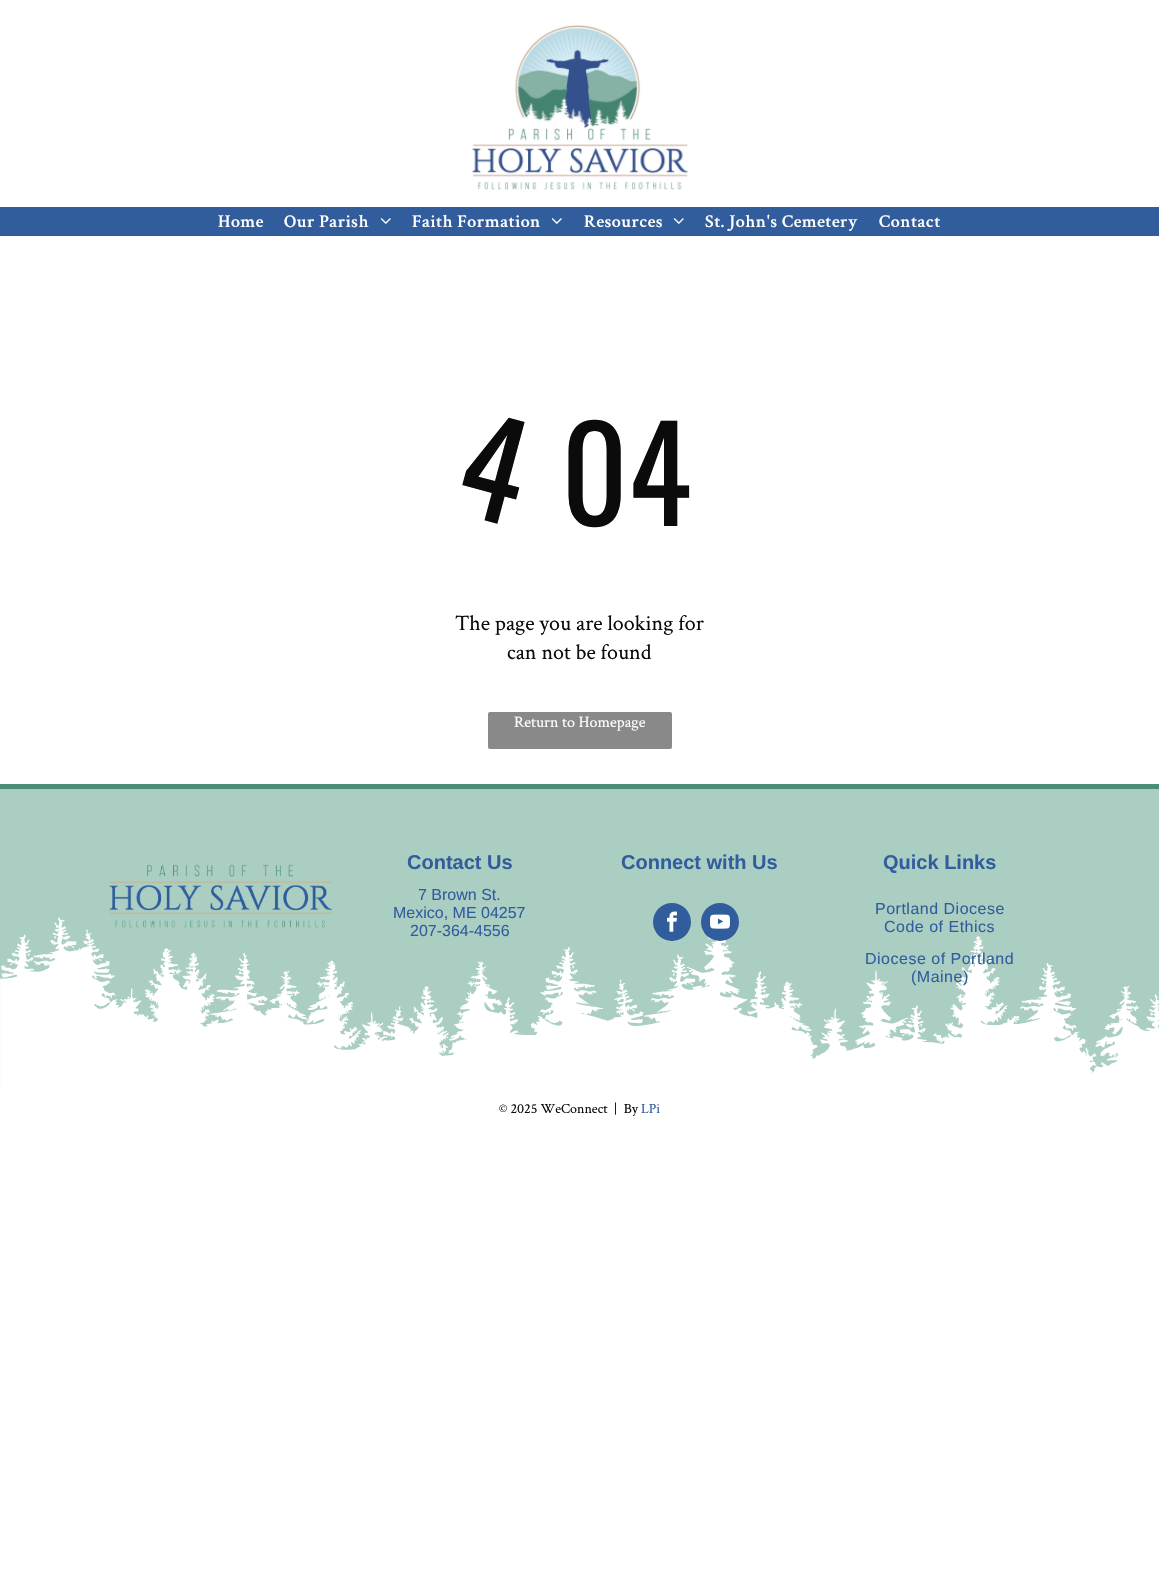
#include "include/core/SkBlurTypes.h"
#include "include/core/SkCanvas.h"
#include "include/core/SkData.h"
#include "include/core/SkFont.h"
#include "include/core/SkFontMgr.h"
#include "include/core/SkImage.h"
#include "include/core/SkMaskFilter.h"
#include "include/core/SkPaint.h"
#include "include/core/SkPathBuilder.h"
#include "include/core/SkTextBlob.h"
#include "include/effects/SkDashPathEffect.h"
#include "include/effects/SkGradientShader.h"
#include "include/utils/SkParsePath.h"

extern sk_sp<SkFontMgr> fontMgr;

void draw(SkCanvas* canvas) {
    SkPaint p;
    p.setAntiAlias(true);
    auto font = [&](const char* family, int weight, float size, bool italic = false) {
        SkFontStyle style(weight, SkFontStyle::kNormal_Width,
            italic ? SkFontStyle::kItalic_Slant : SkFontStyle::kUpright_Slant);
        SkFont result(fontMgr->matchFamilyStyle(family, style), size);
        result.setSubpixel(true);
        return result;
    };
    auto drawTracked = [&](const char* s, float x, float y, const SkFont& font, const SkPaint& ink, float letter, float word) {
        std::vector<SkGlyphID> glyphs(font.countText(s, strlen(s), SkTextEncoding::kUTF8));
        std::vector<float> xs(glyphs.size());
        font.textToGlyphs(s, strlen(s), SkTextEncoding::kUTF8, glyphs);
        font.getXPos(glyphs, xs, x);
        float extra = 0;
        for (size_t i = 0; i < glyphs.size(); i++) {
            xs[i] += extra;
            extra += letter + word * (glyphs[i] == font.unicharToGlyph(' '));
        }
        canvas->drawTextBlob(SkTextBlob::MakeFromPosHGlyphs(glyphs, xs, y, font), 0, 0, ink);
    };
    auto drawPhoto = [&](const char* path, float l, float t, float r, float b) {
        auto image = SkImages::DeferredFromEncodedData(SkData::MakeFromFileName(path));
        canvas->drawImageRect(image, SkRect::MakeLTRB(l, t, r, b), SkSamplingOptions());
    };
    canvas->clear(0xFFFFFFFF);
    drawPhoto("media/1.png", 472, 25, 689, 190);
    p.setColor(0xFF315D9D);
    canvas->drawRect(SkRect::MakeLTRB(0, 207, 1159, 236), p);
    auto font1 = font("Crimson Text", 600, 18);
    p.setColor(0xFFFFFFFF);
    drawTracked("Home", 218, 227, font1, p, 0.5f, 0);
    drawTracked("Our Parish", 284, 227, font1, p, 0.5f, 0);
    drawPhoto("media/2.png", 380, 218, 391, 224);
    drawTracked("Faith Formation", 412, 227, font1, p, 0.5f, 0);
    drawPhoto("media/2.png", 551, 218, 562, 224);
    drawTracked("Resources", 584, 227, font1, p, 0.5f, 0);
    drawPhoto("media/2.png", 673, 218, 684, 224);
    drawTracked("St. John's Cemetery", 705, 227, font1, p, 0.5f, 0);
    drawTracked("Contact", 879, 227, font1, p, 0.5f, 0);
    auto font2 = font("Oswald", 400, 130);
    p.setColor(0xFF0C0B0B);
    canvas->save();
    canvas->rotate(15, 450, 511);
    canvas->drawString("4", 450, 511, font2, p);
    canvas->restore();
    canvas->drawString("04", 561, 526, font2, p);
    auto font3 = font("Crimson Text", 400, 22);
    canvas->drawString("The page you are looking for", 455, 630, font3, p);
    canvas->drawString("can not be found", 507, 659, font3, p);
    p.setColor(0xFF898989);
    canvas->drawRoundRect(SkRect::MakeLTRB(488, 712, 672, 749), 2, 2, p);
    auto font4 = font("Crimson Text", 400, 16);
    p.setColor(0xFFFFFFFF);
    canvas->drawString("Return to Homepage", 514, 727, font4, p);
    p.setColor(0xFFABCEC2);
    canvas->drawRect(SkRect::MakeLTRB(0, 789, 1159, 1090), p);
    p.setColor(0xFF4B8E76);
    canvas->drawRect(SkRect::MakeLTRB(0, 784, 1159, 789), p);
    drawPhoto("media/3.png", 0, 917, 1159, 1090);
    drawPhoto("media/4.png", 109, 864, 332, 928);
    auto font5 = font("Liberation Sans", 700, 20);
    p.setColor(0xFF315D9D);
    canvas->drawString("Contact Us", 407, 869, font5, p);
    auto font6 = font("Liberation Sans", 400, 16);
    {
        const struct { const char* s; float x, y; } items[] = {
            {"7 Brown St.", 418, 900},
            {"Mexico, ME 04257", 393, 918},
            {"207-364-4556", 410, 936},
        };
        for (auto [s, x, y] : items) {
            canvas->drawString(s, x, y, font6, p);
        }
    }
    canvas->drawString("Connect with Us", 621, 869, font5, p);
    canvas->drawCircle(672, 922, 19, p);
    drawPhoto("media/5.png", 667, 911, 677, 932);
    canvas->drawCircle(720, 922, 19, p);
    drawPhoto("media/6.png", 710, 914, 730, 929);
    canvas->drawString("Quick Links", 883, 869, font5, p);
    {
        const struct { const char* s; float x, y; } items[] = {
            {"Portland Diocese", 875, 914},
            {"Code of Ethics", 884, 932},
            {"Diocese of Portland", 865, 964},
            {"(Maine)", 911, 982},
        };
        for (auto [s, x, y] : items) {
            drawTracked(s, x, y, font6, p, 0.5f, 0);
        }
    }
    auto font7 = font("Crimson Text", 400, 14);
    p.setColor(0xFF0C0B0B);
    canvas->drawString("© 2025 WeConnect  |  By", 499, 1113, font7, p);
    p.setColor(0xFF315D9D);
    canvas->drawString("LPi", 641, 1113, font7, p);
}
